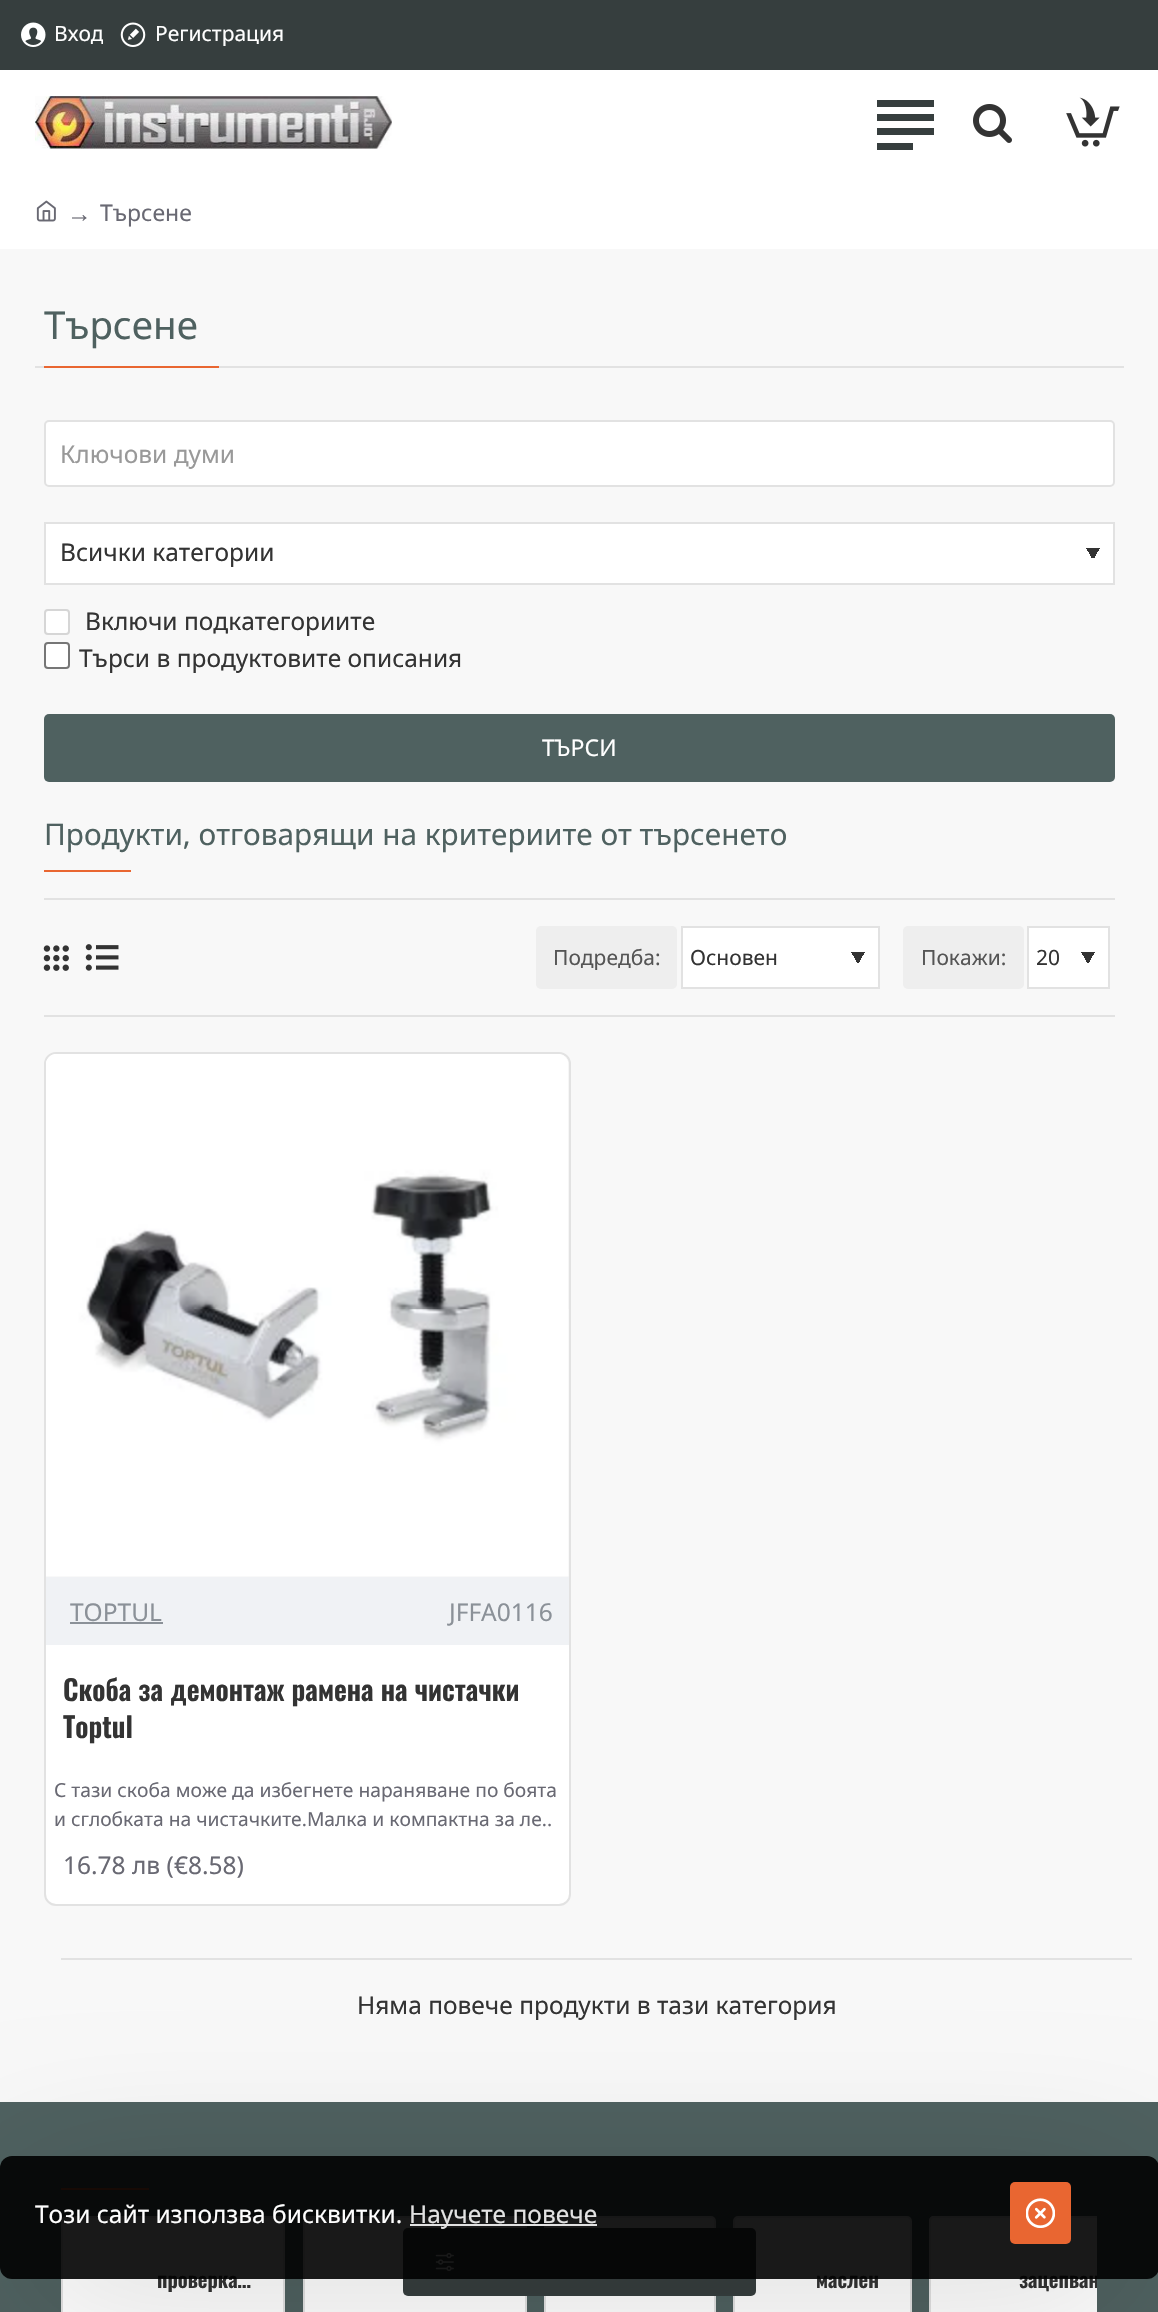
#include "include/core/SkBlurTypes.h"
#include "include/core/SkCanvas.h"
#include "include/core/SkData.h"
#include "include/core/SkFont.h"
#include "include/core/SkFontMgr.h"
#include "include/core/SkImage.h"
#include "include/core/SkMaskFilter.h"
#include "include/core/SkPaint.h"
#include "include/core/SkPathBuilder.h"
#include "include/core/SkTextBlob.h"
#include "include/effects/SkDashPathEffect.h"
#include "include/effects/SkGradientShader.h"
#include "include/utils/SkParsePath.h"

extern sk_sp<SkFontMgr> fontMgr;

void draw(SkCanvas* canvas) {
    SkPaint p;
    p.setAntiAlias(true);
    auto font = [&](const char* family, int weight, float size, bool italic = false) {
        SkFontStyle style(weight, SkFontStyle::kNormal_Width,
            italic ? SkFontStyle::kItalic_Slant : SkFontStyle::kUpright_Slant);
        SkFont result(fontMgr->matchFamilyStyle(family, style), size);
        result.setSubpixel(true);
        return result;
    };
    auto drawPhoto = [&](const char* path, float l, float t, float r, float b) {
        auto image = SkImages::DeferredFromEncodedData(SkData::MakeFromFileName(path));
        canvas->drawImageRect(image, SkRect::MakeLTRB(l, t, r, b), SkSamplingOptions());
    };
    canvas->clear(0xFFF8F8F8);
    p.setColor(0xFF363E3E);
    canvas->drawRect(SkRect::MakeLTRB(0, 0, 1158, 70), p);
    drawPhoto("media/1.png", 21, 22, 46, 47);
    canvas->save();
    canvas->clipRect(SkRect::MakeLTRB(54, 19, 103, 53));
    auto font1 = font("Noto Sans", 400, 21);
    p.setColor(0xFFFFFFFF);
    canvas->drawString("Вход", 54, 41, font1, p);
    canvas->restore();
    drawPhoto("media/2.png", 120, 22, 146, 47);
    canvas->drawString("Регистрация", 155, 41, font1, p);
    canvas->drawRect(SkRect::MakeLTRB(0, 70, 1158, 249), p);
    drawPhoto("media/3.png", 35, 96, 392, 149);
    p.setColor(0xFF363E3E);
    canvas->drawPath(SkPathBuilder().moveTo(877, 100).lineTo(934, 100).lineTo(934, 107).lineTo(877, 107).close().moveTo(877, 135).lineTo(877, 128).lineTo(934, 128).lineTo(934, 135).close().moveTo(934, 114).lineTo(934, 121).lineTo(877, 121).lineTo(877, 114).close().moveTo(913, 143).lineTo(913, 150).lineTo(877, 150).lineTo(877, 143).close().detach(), p);
    drawPhoto("media/4.png", 973, 104, 1012, 143);
    drawPhoto("media/5.png", 1066, 97, 1120, 147);
    drawPhoto("media/6.png", 36, 200, 56, 222);
    auto font2 = font("Liberation Serif", 400, 24.5f);
    p.setColor(0xFF696973);
    canvas->drawString("→", 67, 222, font2, p);
    auto font3 = font("Noto Sans", 400, 23);
    canvas->drawString("Търсене", 100, 221, font3, p);
    p.setColor(0xFFE2E2E2);
    canvas->drawRect(SkRect::MakeLTRB(35, 366, 1124, 368), p);
    auto font4 = font("Noto Sans", 400, 38.5f);
    p.setColor(0xFF4F6160);
    canvas->drawString("Търсене", 44, 339, font4, p);
    p.setColor(0xFFE96631);
    canvas->drawRect(SkRect::MakeLTRB(44, 366, 219, 368), p);
    p.setColor(0xFFFFFFFF);
    canvas->drawRoundRect(SkRect::MakeLTRB(45, 421, 1114, 486), 4, 4, p);
    p.setStyle(SkPaint::kStroke_Style);
    p.setStrokeWidth(2);
    p.setColor(0xFFE2E2E2);
    canvas->drawRoundRect(SkRect::MakeLTRB(45, 421, 1114, 486), 4, 4, p);
    auto font5 = font("Noto Sans", 400, 24.5f);
    p.setStyle(SkPaint::kFill_Style);
    p.setColor(0xFF999999);
    canvas->drawString("Ключови думи", 60, 463, font5, p);
    p.setColor(0xFFFFFFFF);
    canvas->drawRect(SkRect::MakeLTRB(46, 524, 1113, 583), p);
    {
        const SkColor colors[] = {0xFF333333, 0xFFFFFFFF};
        const float stops[] = {0.63f, 0.63f};
        const SkPoint ends[] = {{1105, 546}, {1081, 560}};
        p.setShader(SkGradientShader::MakeLinear(ends, colors, stops, 2, SkTileMode::kClamp));
        p.setAlpha(255);
    }
    canvas->drawRect(SkRect::MakeLTRB(1086, 548, 1100, 558), p);
    {
        const SkColor colors[] = {0x00FFFFFF, 0xFFFFFFFF};
        const float stops[] = {0.63f, 0.63f};
        const SkPoint ends[] = {{1081, 546}, {1105, 560}};
        p.setShader(SkGradientShader::MakeLinear(ends, colors, stops, 2, SkTileMode::kClamp));
        p.setAlpha(255);
    }
    canvas->drawRect(SkRect::MakeLTRB(1095, 549, 1100, 558), p);
    p.setStyle(SkPaint::kStroke_Style);
    p.setShader(nullptr);
    p.setColor(0xFFE2E2E2);
    canvas->drawRect(SkRect::MakeLTRB(45, 523, 1114, 584), p);
    p.setStyle(SkPaint::kFill_Style);
    p.setColor(0xFF333333);
    canvas->drawString("Всички категории", 60, 561, font5, p);
    p.setColor(0xFFFFFFFF);
    canvas->drawRoundRect(SkRect::MakeLTRB(45, 610, 69, 634), 3, 3, p);
    p.setStyle(SkPaint::kStroke_Style);
    p.setColor(0xFFD6D6D6);
    canvas->drawRoundRect(SkRect::MakeLTRB(45, 610, 69, 634), 3, 3, p);
    p.setStyle(SkPaint::kFill_Style);
    p.setColor(0xFF333333);
    canvas->drawString("Включи подкатегориите", 85, 630, font5, p);
    p.setColor(0xFFFFFFFF);
    canvas->drawRoundRect(SkRect::MakeLTRB(45, 643, 69, 668), 3, 3, p);
    p.setStyle(SkPaint::kStroke_Style);
    p.setColor(0xFF767676);
    canvas->drawRoundRect(SkRect::MakeLTRB(45, 643, 69, 668), 3, 3, p);
    p.setStyle(SkPaint::kFill_Style);
    p.setColor(0xFF333333);
    canvas->drawString("Търси в продуктовите описания", 79, 667, font5, p);
    p.setColor(0xFF4F6160);
    canvas->drawRoundRect(SkRect::MakeLTRB(44, 714, 1115, 782), 5, 5, p);
    p.setColor(0xFFFFFFFF);
    canvas->drawString("ТЪРСИ", 542, 756, font3, p);
    auto font6 = font("Noto Sans", 400, 29.75f);
    p.setColor(0xFF4F6160);
    canvas->drawString("Продукти, отговарящи на критериите от търсенето", 44, 845, font6, p);
    {
        const struct { float l, t, r, b; SkColor color; } items[] = {
            {44, 870, 131, 872, 0xFFE96631},
            {44, 898, 1115, 900, 0xFFE2E2E2},
            {44, 1015, 1115, 1017, 0xFFE2E2E2},
        };
        for (auto [l, t, r, b, color] : items) {
            p.setColor(color);
            canvas->drawRect(SkRect::MakeLTRB(l, t, r, b), p);
        }
    }
    drawPhoto("media/7.png", 43, 945, 69, 971);
    drawPhoto("media/8.png", 85, 944, 119, 971);
    p.setColor(0xFFEEEEEE);
    canvas->drawRoundRect(SkRect::MakeLTRB(536, 926, 677, 989), 5, 5, p);
    p.setColor(0xFF555555);
    canvas->drawString("Подредба:", 553, 965, font1, p);
    p.setColor(0xFFFFFFFF);
    canvas->drawRect(SkRect::MakeLTRB(683, 928, 878, 987), p);
    {
        const SkColor colors[] = {0xFF333333, 0xFFFFFFFF};
        const float stops[] = {0.63f, 0.63f};
        const SkPoint ends[] = {{870, 950}, {846, 964}};
        p.setShader(SkGradientShader::MakeLinear(ends, colors, stops, 2, SkTileMode::kClamp));
        p.setAlpha(255);
    }
    canvas->drawRect(SkRect::MakeLTRB(851, 952, 865, 963), p);
    {
        const SkColor colors[] = {0x00FFFFFF, 0xFFFFFFFF};
        const float stops[] = {0.63f, 0.63f};
        const SkPoint ends[] = {{846, 950}, {870, 964}};
        p.setShader(SkGradientShader::MakeLinear(ends, colors, stops, 2, SkTileMode::kClamp));
        p.setAlpha(255);
    }
    canvas->drawRect(SkRect::MakeLTRB(859, 953, 865, 963), p);
    p.setStyle(SkPaint::kStroke_Style);
    p.setShader(nullptr);
    p.setColor(0xFFE2E2E2);
    canvas->drawRect(SkRect::MakeLTRB(682, 927, 879, 988), p);
    p.setStyle(SkPaint::kFill_Style);
    p.setColor(0xFF333333);
    canvas->drawString("Основен", 690, 965, font1, p);
    p.setColor(0xFFEEEEEE);
    canvas->drawRoundRect(SkRect::MakeLTRB(903, 926, 1024, 989), 5, 5, p);
    p.setColor(0xFF555555);
    canvas->drawString("Покажи:", 921, 965, font1, p);
    p.setColor(0xFFFFFFFF);
    canvas->drawRect(SkRect::MakeLTRB(1029, 928, 1108, 987), p);
    {
        const SkColor colors[] = {0xFF333333, 0xFFFFFFFF};
        const float stops[] = {0.63f, 0.63f};
        const SkPoint ends[] = {{1100, 950}, {1076, 964}};
        p.setShader(SkGradientShader::MakeLinear(ends, colors, stops, 2, SkTileMode::kClamp));
        p.setAlpha(255);
    }
    canvas->drawRect(SkRect::MakeLTRB(1081, 952, 1095, 963), p);
    {
        const SkColor colors[] = {0x00FFFFFF, 0xFFFFFFFF};
        const float stops[] = {0.63f, 0.63f};
        const SkPoint ends[] = {{1076, 950}, {1100, 964}};
        p.setShader(SkGradientShader::MakeLinear(ends, colors, stops, 2, SkTileMode::kClamp));
        p.setAlpha(255);
    }
    canvas->drawRect(SkRect::MakeLTRB(1089, 953, 1095, 963), p);
    p.setStyle(SkPaint::kStroke_Style);
    p.setShader(nullptr);
    p.setColor(0xFFE2E2E2);
    canvas->drawRect(SkRect::MakeLTRB(1028, 927, 1109, 988), p);
    p.setStyle(SkPaint::kFill_Style);
    p.setColor(0xFF333333);
    canvas->drawString("20", 1036, 965, font1, p);
    p.setColor(0xFFFFFFFF);
    canvas->drawRoundRect(SkRect::MakeLTRB(45, 1053, 570, 1905), 11, 11, p);
    p.setStyle(SkPaint::kStroke_Style);
    p.setColor(0xFFE2E2E2);
    canvas->drawRoundRect(SkRect::MakeLTRB(45, 1053, 570, 1905), 11, 11, p);
    p.setStyle(SkPaint::kFill_Style);
    p.setColor(0xFFEEEEEE);
    canvas->drawPath(SkPathBuilder().moveTo(58, 1054).lineTo(557, 1054).cubicTo(563.5f, 1054, 569, 1059.5f, 569, 1066).lineTo(569, 1577).lineTo(46, 1577).lineTo(46, 1066).cubicTo(46, 1059.5f, 51.5f, 1054, 58, 1054).close().detach(), p);
    drawPhoto("media/9.png", 46, 1054, 569, 1577);
    p.setColor(0xFFF0F2F5);
    canvas->drawRect(SkRect::MakeLTRB(46, 1577, 569, 1645), p);
    p.setColor(0xFF8B9198);
    canvas->drawString("TOPTUL", 70, 1621, font5, p);
    canvas->drawRect(SkRect::MakeLTRB(70, 1622, 163, 1624), p);
    canvas->drawString("JFFA0116", 449, 1621, font5, p);
    auto font7 = font("Oswald", 600, 28);
    p.setColor(0xFF333333);
    canvas->drawString("Скоба за демонтаж рамена на чистачки", 63, 1701, font7, p);
    canvas->drawString("Toptul", 63, 1738, font7, p);
    auto font8 = font("Noto Sans", 400, 19.25f);
    p.setColor(0xFF696973);
    canvas->drawString("С тази скоба може да избегнете нараняване по боята", 54, 1797, font8, p);
    canvas->drawString("и сглобката на чистачките.Малка и компактна за ле..", 54, 1826, font8, p);
    canvas->drawString("16.78 лв (€8.58)", 63, 1874, font5, p);
    p.setColor(0xFFE2E2E2);
    canvas->drawRect(SkRect::MakeLTRB(61, 1958, 1132, 1960), p);
    p.setColor(0xFF333333);
    canvas->drawString("Няма повече продукти в тази категория", 357, 2014, font5, p);
    p.setColor(0xFF4F6160);
    canvas->drawRect(SkRect::MakeLTRB(0, 2102, 1158, 2312), p);
    p.setColor(0xFFE96631);
    canvas->drawRect(SkRect::MakeLTRB(61, 2188, 149, 2190), p);
    p.setColor(0xFFFFFFFF);
    canvas->drawRoundRect(SkRect::MakeLTRB(62, 2217, 284, 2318), 4, 4, p);
    p.setStyle(SkPaint::kStroke_Style);
    p.setColor(0xFFE2E2E2);
    canvas->drawRoundRect(SkRect::MakeLTRB(62, 2217, 284, 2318), 4, 4, p);
    canvas->save();
    canvas->clipRect(SkRect::MakeLTRB(158, 2238, 263, 2294));
    auto font9 = font("Oswald", 600, 21);
    p.setStyle(SkPaint::kFill_Style);
    p.setColor(0xFF333333);
    canvas->drawString("проверка…", 157, 2288, font9, p);
    canvas->restore();
    p.setColor(0xFFFFFFFF);
    canvas->drawRoundRect(SkRect::MakeLTRB(304, 2217, 526, 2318), 4, 4, p);
    p.setStyle(SkPaint::kStroke_Style);
    p.setColor(0xFFE2E2E2);
    canvas->drawRoundRect(SkRect::MakeLTRB(304, 2217, 526, 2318), 4, 4, p);
    p.setStyle(SkPaint::kFill_Style);
    p.setColor(0xFFFFFFFF);
    canvas->drawRoundRect(SkRect::MakeLTRB(545, 2217, 715, 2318), 4, 4, p);
    p.setStyle(SkPaint::kStroke_Style);
    p.setColor(0xFFE2E2E2);
    canvas->drawRoundRect(SkRect::MakeLTRB(545, 2217, 715, 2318), 4, 4, p);
    p.setStyle(SkPaint::kFill_Style);
    p.setColor(0xFFFFFFFF);
    canvas->drawRoundRect(SkRect::MakeLTRB(734, 2217, 911, 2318), 4, 4, p);
    p.setStyle(SkPaint::kStroke_Style);
    p.setColor(0xFFE2E2E2);
    canvas->drawRoundRect(SkRect::MakeLTRB(734, 2217, 911, 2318), 4, 4, p);
    p.setStyle(SkPaint::kFill_Style);
    p.setColor(0xFF333333);
    canvas->drawString("маслен", 816, 2288, font9, p);
    p.setColor(0xFFFFFFFF);
    canvas->drawPath(SkPathBuilder().moveTo(934, 2216).lineTo(1097, 2216).lineTo(1097, 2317).lineTo(934, 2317).cubicTo(931, 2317, 929, 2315, 929, 2312).lineTo(929, 2221).cubicTo(929, 2218, 931, 2216, 934, 2216).close().detach(), p);
    canvas->save();
    canvas->clipRect(SkRect::MakeLTRB(61, 2216, 1097, 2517));
    p.setStyle(SkPaint::kStroke_Style);
    p.setColor(0xFFE2E2E2);
    canvas->drawRoundRect(SkRect::MakeLTRB(930, 2217, 1135, 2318), 4, 4, p);
    canvas->restore();
    canvas->save();
    canvas->clipRect(SkRect::MakeLTRB(1019, 2238, 1097, 2294));
    p.setStyle(SkPaint::kFill_Style);
    p.setColor(0xFF333333);
    canvas->drawString("зацепван", 1019, 2288, font9, p);
    canvas->restore();
    p.setColor(0xFF363E3E);
    canvas->drawRoundRect(SkRect::MakeLTRB(403, 2228, 756, 2296), 5, 5, p);
    drawPhoto("media/11.png", 435, 2253, 454, 2272);
    canvas->save();
    canvas->clipPath(SkPathBuilder(SkPathFillType::kEvenOdd).moveTo(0, 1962).lineTo(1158, 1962).lineTo(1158, 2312).lineTo(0, 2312).close().moveTo(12, 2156).lineTo(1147, 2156).cubicTo(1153.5f, 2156, 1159, 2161.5f, 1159, 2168).lineTo(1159, 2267).cubicTo(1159, 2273.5f, 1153.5f, 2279, 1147, 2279).lineTo(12, 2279).cubicTo(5.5f, 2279, 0, 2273.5f, 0, 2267).lineTo(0, 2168).cubicTo(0, 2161.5f, 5.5f, 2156, 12, 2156).close().detach(), true);
    p.setColor(0x33000000);
    p.setMaskFilter(SkMaskFilter::MakeBlur(kNormal_SkBlurStyle, 79));
    canvas->drawRect(SkRect::MakeLTRB(18, 2200, 1141, 2287), p);
    p.setMaskFilter(nullptr);
    canvas->restore();
    p.setColor(0xE6000000);
    canvas->drawRoundRect(SkRect::MakeLTRB(0, 2156, 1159, 2279), 12, 12, p);
    p.setColor(0xFFFFFFFF);
    canvas->drawString("Този сайт използва бисквитки.", 35, 2223, font5, p);
    p.setColor(0xFFE2E2E2);
    canvas->drawRect(SkRect::MakeLTRB(410, 2224, 597, 2226), p);
    canvas->drawString("Научете повече", 409, 2223, font5, p);
    p.setColor(0xFFE96631);
    canvas->drawRoundRect(SkRect::MakeLTRB(1010, 2182, 1071, 2244), 5, 5, p);
    drawPhoto("media/10.png", 1026, 2198, 1055, 2228);
}
